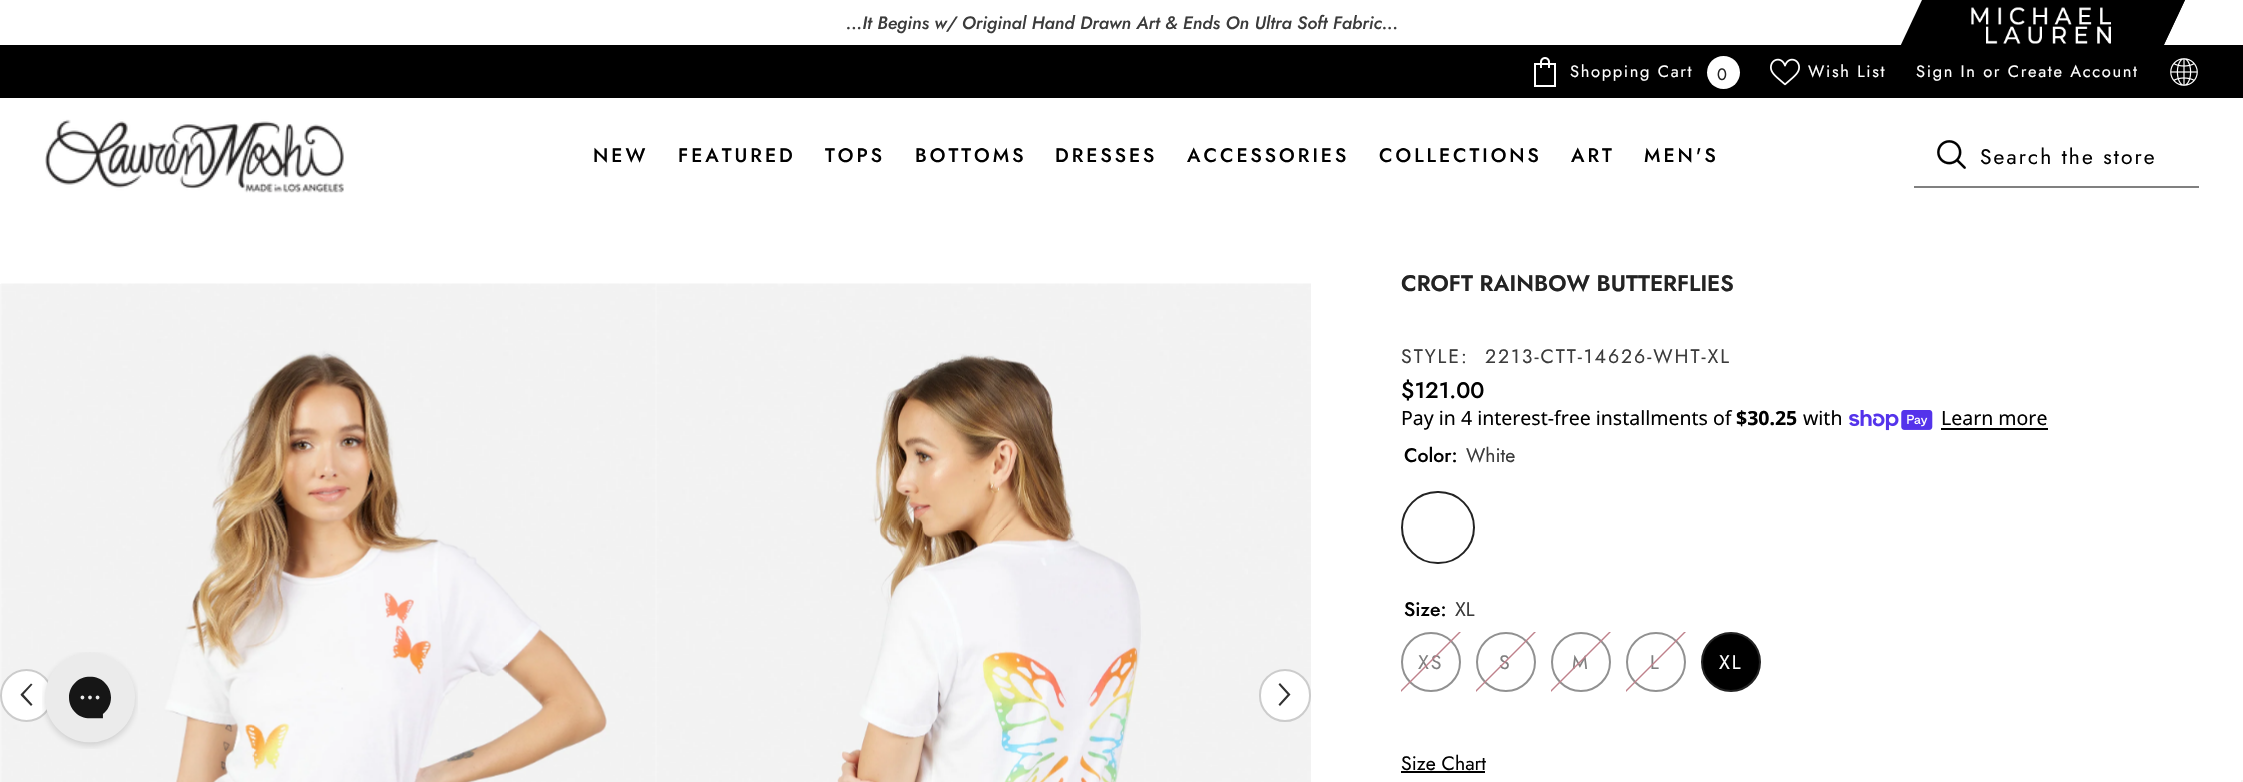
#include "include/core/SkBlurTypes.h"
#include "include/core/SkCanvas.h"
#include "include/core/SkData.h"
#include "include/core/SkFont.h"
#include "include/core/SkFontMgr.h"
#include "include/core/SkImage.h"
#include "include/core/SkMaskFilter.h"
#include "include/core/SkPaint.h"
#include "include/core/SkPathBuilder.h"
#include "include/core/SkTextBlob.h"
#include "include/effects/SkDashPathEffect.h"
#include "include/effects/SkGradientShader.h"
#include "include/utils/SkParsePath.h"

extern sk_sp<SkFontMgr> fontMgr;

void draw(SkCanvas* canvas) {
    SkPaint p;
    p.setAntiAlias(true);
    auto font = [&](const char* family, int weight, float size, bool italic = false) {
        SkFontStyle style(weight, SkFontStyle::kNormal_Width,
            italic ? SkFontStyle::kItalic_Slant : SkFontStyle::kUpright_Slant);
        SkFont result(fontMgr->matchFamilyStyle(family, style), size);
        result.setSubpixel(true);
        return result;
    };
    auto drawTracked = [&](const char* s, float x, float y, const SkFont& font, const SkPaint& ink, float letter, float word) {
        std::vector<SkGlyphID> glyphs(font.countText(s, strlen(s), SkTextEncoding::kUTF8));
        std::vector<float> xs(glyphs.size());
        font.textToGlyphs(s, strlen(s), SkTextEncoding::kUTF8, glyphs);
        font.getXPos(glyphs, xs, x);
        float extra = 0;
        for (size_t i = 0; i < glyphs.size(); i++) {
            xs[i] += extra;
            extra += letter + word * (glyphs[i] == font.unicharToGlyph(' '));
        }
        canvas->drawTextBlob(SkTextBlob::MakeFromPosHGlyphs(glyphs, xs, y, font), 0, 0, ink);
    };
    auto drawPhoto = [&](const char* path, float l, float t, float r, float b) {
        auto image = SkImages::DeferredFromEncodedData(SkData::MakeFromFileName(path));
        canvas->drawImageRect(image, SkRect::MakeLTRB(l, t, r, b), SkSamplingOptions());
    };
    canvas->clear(0xFFFFFFFF);
    drawPhoto("media/8.png", 1, 283, 657, 782);
    p.setColor(0xFFF6F6F6);
    canvas->drawRect(SkRect::MakeLTRB(0, 284, 1, 782), p);
    p.setColor(0xFFFFFFFF);
    canvas->drawCircle(26.5f, 695.5f, 25.5f, p);
    p.setStyle(SkPaint::kStroke_Style);
    p.setStrokeWidth(2);
    p.setColor(0xFFCCCCCC);
    canvas->drawCircle(26.5f, 695.5f, 25.5f, p);
    drawPhoto("media/1.png", 42, 652, 138, 749);
    auto font1 = font("Jost", 500, 18, true);
    p.setStyle(SkPaint::kFill_Style);
    p.setColor(0xFF3C3C3C);
    canvas->drawString("...It Begins w/ Original Hand Drawn Art & Ends On Ultra Soft Fabric...", 846, 29, font1, p);
    p.setColor(0xFFF7F7F7);
    canvas->drawRect(SkRect::MakeLTRB(2163, 42, 2165, 45), p);
    p.setColor(0xFF000000);
    canvas->drawPath(SkPathBuilder().moveTo(1922, 0).lineTo(2185, 0).lineTo(2161, 51).lineTo(1898, 51).close().detach(), p);
    drawPhoto("media/2.png", 1971, 7, 2111, 44);
    canvas->drawPath(SkPathBuilder().moveTo(2140, 0).lineTo(2185, 0).lineTo(2161, 51).lineTo(2116, 51).close().detach(), p);
    canvas->drawRect(SkRect::MakeLTRB(0, 45, 2243, 98), p);
    drawPhoto("media/3.png", 1534, 57, 1556, 87);
    auto font2 = font("Jost", 400, 16.5f);
    p.setColor(0xFFFFFFFF);
    drawTracked("Shopping Cart", 1570, 77, font2, p, 1.65f, 0);
    canvas->drawCircle(1723.5f, 72.5f, 16.5f, p);
    p.setColor(0xFF232323);
    drawTracked("0", 1717, 80, font2, p, 1.95f, 0);
    drawPhoto("media/4.png", 1770, 58, 1800, 86);
    p.setColor(0xFFFFFFFF);
    drawTracked("Wish List", 1808, 77, font2, p, 1.65f, 0);
    drawTracked("Sign In or Create Account", 1916, 77, font2, p, 1.65f, 0);
    drawPhoto("media/5.png", 2170, 58, 2198, 86);
    drawPhoto("media/6.png", 45, 119, 344, 193);
    auto font3 = font("Jost", 500, 19.5f);
    p.setColor(0xFF010101);
    {
        const struct { const char* s; float x, y; } items[] = {
            {"NEW", 593, 162},
            {"FEATURED", 678, 162},
            {"TOPS", 825, 162},
            {"BOTTOMS", 915, 162},
            {"DRESSES", 1055, 162},
            {"ACCESSORIES", 1187, 162},
            {"COLLECTIONS", 1379, 162},
            {"ART", 1571, 162},
            {"MEN'S", 1644, 162},
        };
        for (auto [s, x, y] : items) {
            drawTracked(s, x, y, font3, p, 3, 0);
        }
    }
    drawPhoto("media/7.png", 1937, 140, 1966, 169);
    p.setColor(0xFF808080);
    canvas->drawRect(SkRect::MakeLTRB(1914, 186, 2199, 188), p);
    auto font4 = font("Jost", 400, 21);
    p.setColor(0xFF010101);
    drawTracked("Search the store", 1980, 164, font4, p, 2.1f, 0);
    drawPhoto("media/9.png", 656, 283, 1311, 782);
    p.setColor(0xFF323232);
    canvas->drawPath(SkPathBuilder().moveTo(31, 706).lineTo(32.5f, 704.5f).lineTo(23.5f, 694.5f).lineTo(32.5f, 684.5f).lineTo(31, 683.5f).lineTo(20.5f, 694.5f).lineTo(21, 695.5f).close().detach(), p);
    p.setColor(0xFFFFFFFF);
    canvas->drawRoundRect(SkRect::MakeLTRB(1260, 670, 1310, 721), 25, 25, p);
    p.setStyle(SkPaint::kStroke_Style);
    p.setColor(0xFFCCCCCC);
    canvas->drawRoundRect(SkRect::MakeLTRB(1260, 670, 1310, 721), 25, 25, p);
    p.setStyle(SkPaint::kFill_Style);
    p.setColor(0xFF323232);
    canvas->drawPath(SkPathBuilder().moveTo(1280, 683).lineTo(1278.5f, 684.5f).lineTo(1287.5f, 694.5f).lineTo(1278.5f, 704.5f).lineTo(1280, 706).lineTo(1290.5f, 694.5f).lineTo(1290, 694).close().detach(), p);
    auto font5 = font("Jost", 600, 22.5f);
    p.setColor(0xFF232323);
    canvas->drawString("CROFT RAINBOW BUTTERFLIES", 1401, 291, font5, p);
    auto font6 = font("Jost", 400, 19.5f);
    p.setColor(0xFF3C3C3C);
    drawTracked("STYLE:", 1401, 363, font6, p, 1.95f, 0);
    drawTracked("2213-CTT-14626-WHT-XL", 1485, 363, font6, p, 1.95f, 0);
    auto font7 = font("Jost", 500, 22.5f);
    p.setColor(0xFF010101);
    canvas->drawString("$121.00", 1401, 398, font7, p);
    auto font8 = font("Noto Sans", 400, 19.5f);
    canvas->drawString("Pay in 4 interest-free installments of", 1401, 425, font8, p);
    auto font9 = font("Noto Sans", 700, 19.5f);
    canvas->drawString("$30.25", 1736, 425, font9, p);
    canvas->drawString("with", 1803, 425, font8, p);
    drawPhoto("media/10.png", 1849, 410, 1933, 431);
    canvas->drawString("Learn more", 1941, 425, font8, p);
    p.setColor(0xFF000000);
    canvas->drawRect(SkRect::MakeLTRB(1941, 428, 2048, 430), p);
    p.setColor(0xFF010101);
    canvas->drawString("Color:", 1404, 462, font3, p);
    p.setColor(0xFF3C3C3C);
    canvas->drawString("White", 1466, 462, font6, p);
    p.setStyle(SkPaint::kStroke_Style);
    p.setColor(0xFF232323);
    canvas->drawRoundRect(SkRect::MakeLTRB(1402, 492, 1474, 563), 35.5f, 35.5f, p);
    p.setStyle(SkPaint::kFill_Style);
    p.setColor(0xFF010101);
    canvas->drawString("Size:", 1404, 616, font3, p);
    p.setColor(0xFF3C3C3C);
    canvas->drawString("XL", 1455, 616, font6, p);
    p.setStyle(SkPaint::kStroke_Style);
    p.setColor(0xFF919191);
    canvas->drawCircle(1431, 662, 29, p);
    p.setStyle(SkPaint::kFill_Style);
    p.setColor(0xFF808080);
    drawTracked("XS", 1418, 669, font6, p, 1.95f, 0);
    canvas->save();
    canvas->clipRect(SkRect::MakeLTRB(1401, 632, 1461, 692));
    p.setColor(0xFFBF818B);
    canvas->drawPath(SkPathBuilder().moveTo(1398, 693).lineTo(1462, 629).lineTo(1463, 630).lineTo(1399, 694).close().detach(), p);
    canvas->restore();
    p.setStyle(SkPaint::kStroke_Style);
    p.setColor(0xFF919191);
    canvas->drawCircle(1506, 662, 29, p);
    p.setStyle(SkPaint::kFill_Style);
    p.setColor(0xFF808080);
    drawTracked("S", 1499, 669, font6, p, 1.95f, 0);
    canvas->save();
    canvas->clipRect(SkRect::MakeLTRB(1476, 632, 1536, 692));
    p.setColor(0xFFBF818B);
    canvas->drawPath(SkPathBuilder().moveTo(1473, 693).lineTo(1537, 629).lineTo(1538, 630).lineTo(1474, 694).close().detach(), p);
    canvas->restore();
    p.setStyle(SkPaint::kStroke_Style);
    p.setColor(0xFF919191);
    canvas->drawCircle(1581, 662, 29, p);
    p.setStyle(SkPaint::kFill_Style);
    p.setColor(0xFF808080);
    drawTracked("M", 1572, 669, font6, p, 1.95f, 0);
    canvas->save();
    canvas->clipRect(SkRect::MakeLTRB(1551, 632, 1611, 692));
    p.setColor(0xFFBF818B);
    canvas->drawPath(SkPathBuilder().moveTo(1548, 693).lineTo(1612, 629).lineTo(1613, 630).lineTo(1549, 694).close().detach(), p);
    canvas->restore();
    p.setStyle(SkPaint::kStroke_Style);
    p.setColor(0xFF919191);
    canvas->drawCircle(1656, 662, 29, p);
    p.setStyle(SkPaint::kFill_Style);
    p.setColor(0xFF808080);
    drawTracked("L", 1650, 669, font6, p, 1.95f, 0);
    canvas->save();
    canvas->clipRect(SkRect::MakeLTRB(1626, 632, 1686, 692));
    p.setColor(0xFFBF818B);
    canvas->drawPath(SkPathBuilder().moveTo(1623, 693).lineTo(1687, 629).lineTo(1688, 630).lineTo(1624, 694).close().detach(), p);
    canvas->restore();
    p.setColor(0xFF000000);
    canvas->drawCircle(1731, 662, 29, p);
    p.setStyle(SkPaint::kStroke_Style);
    p.setColor(0xFF232323);
    canvas->drawCircle(1731, 662, 29, p);
    p.setStyle(SkPaint::kFill_Style);
    p.setColor(0xFFFFFFFF);
    drawTracked("XL", 1719, 669, font6, p, 1.95f, 0);
    p.setColor(0xFF010101);
    canvas->drawString("Size Chart", 1401, 770, font6, p);
    p.setColor(0xFF000000);
    canvas->drawRect(SkRect::MakeLTRB(1401, 771, 1485, 773), p);
    p.setColor(0xFFF5F5F5);
    canvas->drawRect(SkRect::MakeLTRB(2241, 780, 2243, 782), p);
}
